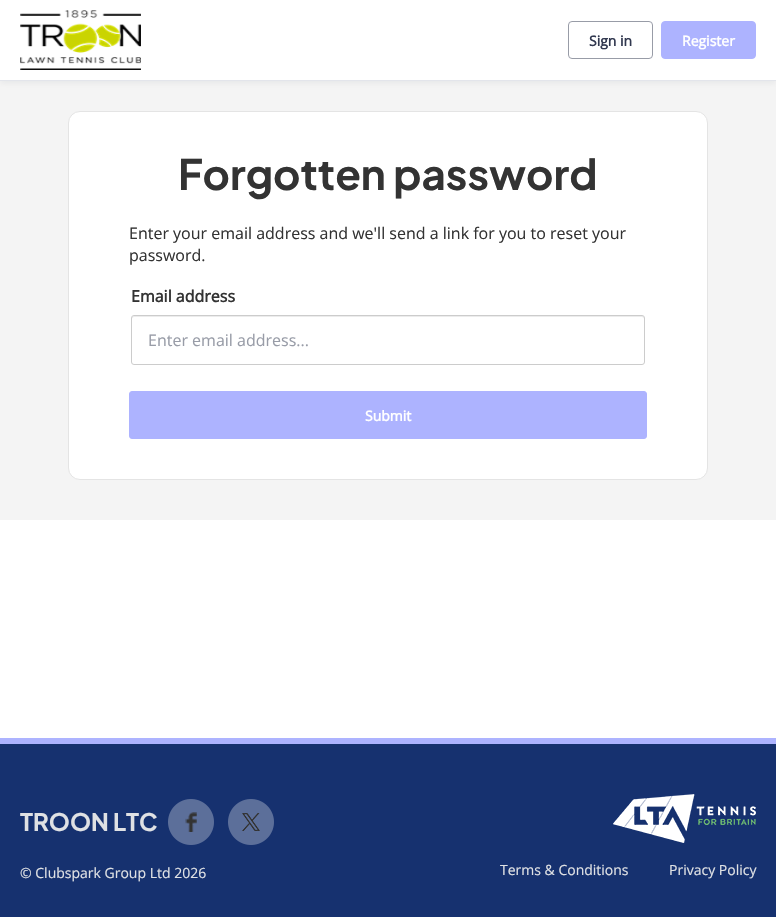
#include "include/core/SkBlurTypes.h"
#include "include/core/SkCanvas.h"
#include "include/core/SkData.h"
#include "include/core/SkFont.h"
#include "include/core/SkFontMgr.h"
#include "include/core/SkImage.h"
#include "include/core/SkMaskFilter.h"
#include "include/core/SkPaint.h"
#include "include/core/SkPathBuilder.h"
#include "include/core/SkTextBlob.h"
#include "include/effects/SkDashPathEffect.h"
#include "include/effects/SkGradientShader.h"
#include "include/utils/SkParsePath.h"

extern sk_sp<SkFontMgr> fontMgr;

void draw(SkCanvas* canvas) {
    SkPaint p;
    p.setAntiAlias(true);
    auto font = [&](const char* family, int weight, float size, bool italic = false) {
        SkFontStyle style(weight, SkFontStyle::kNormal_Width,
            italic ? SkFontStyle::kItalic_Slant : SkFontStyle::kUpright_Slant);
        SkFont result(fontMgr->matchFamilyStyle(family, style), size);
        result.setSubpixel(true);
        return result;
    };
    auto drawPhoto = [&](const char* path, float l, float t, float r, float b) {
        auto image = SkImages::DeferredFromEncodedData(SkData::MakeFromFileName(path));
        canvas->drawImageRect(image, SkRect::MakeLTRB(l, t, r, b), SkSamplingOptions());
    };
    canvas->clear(0xFFFFFFFF);
    p.setColor(0xFFF4F4F4);
    canvas->drawRect(SkRect::MakeLTRB(0, 81, 776, 520), p);
    p.setColor(0x0F141D37);
    p.setMaskFilter(SkMaskFilter::MakeBlur(kNormal_SkBlurStyle, 3));
    canvas->drawRect(SkRect::MakeLTRB(0, 2, 776, 83), p);
    p.setMaskFilter(nullptr);
    p.setColor(0xFFFFFFFF);
    canvas->drawRect(SkRect::MakeLTRB(0, 0, 776, 80), p);
    drawPhoto("media/1.png", 20, 10, 141, 70);
    p.setStyle(SkPaint::kStroke_Style);
    p.setStrokeWidth(1);
    p.setColor(0xFF989CA7);
    canvas->drawRoundRect(SkRect::MakeLTRB(568.5f, 21.5f, 652.5f, 58.5f), 3.5f, 3.5f, p);
    auto font1 = font("Open Sans", 700, 14);
    p.setStyle(SkPaint::kFill_Style);
    p.setColor(0xFF323950);
    canvas->drawString("Sign in", 589, 46, font1, p);
    p.setColor(0xFFADB3FF);
    canvas->drawRoundRect(SkRect::MakeLTRB(661.5f, 21.5f, 755.5f, 58.5f), 3.5f, 3.5f, p);
    p.setStyle(SkPaint::kStroke_Style);
    canvas->drawRoundRect(SkRect::MakeLTRB(661.5f, 21.5f, 755.5f, 58.5f), 3.5f, 3.5f, p);
    p.setStyle(SkPaint::kFill_Style);
    p.setColor(0xFFFFFFFF);
    canvas->drawString("Register", 682, 46, font1, p);
    p.setColor(0xFFE3E5EB);
    canvas->drawRect(SkRect::MakeLTRB(0, 80, 776, 81), p);
    p.setColor(0xFFFFFFFF);
    canvas->drawRoundRect(SkRect::MakeLTRB(68.5f, 111.5f, 707.5f, 479.5f), 11.5f, 11.5f, p);
    p.setStyle(SkPaint::kStroke_Style);
    p.setColor(0xFFE4E4E4);
    canvas->drawRoundRect(SkRect::MakeLTRB(68.5f, 111.5f, 707.5f, 479.5f), 11.5f, 11.5f, p);
    auto font2 = font("Plus Jakarta Sans", 700, 42);
    p.setStyle(SkPaint::kFill_Style);
    p.setColor(0xFF333333);
    canvas->drawString("Forgotten password", 178, 190, font2, p);
    auto font3 = font("Open Sans", 400, 16);
    canvas->drawString("Enter your email address and we'll send a link for you to reset your", 129, 239, font3, p);
    canvas->drawString("password.", 129, 261, font3, p);
    auto font4 = font("Open Sans", 700, 16);
    canvas->drawString("Email address", 131, 302, font4, p);
    p.setColor(0xFFECECEC);
    canvas->drawPath(SkPathBuilder().moveTo(134, 317).lineTo(642, 317).cubicTo(643, 317, 644, 318, 644, 319).cubicTo(644, 318, 644, 316, 642, 316).lineTo(134, 316).lineTo(132, 317).lineTo(132, 319).cubicTo(132, 318, 133, 317, 134, 317).close().detach(), p);
    p.setStyle(SkPaint::kStroke_Style);
    p.setColor(0xFFCCCCCC);
    canvas->drawRoundRect(SkRect::MakeLTRB(131.5f, 315.5f, 644.5f, 364.5f), 2.5f, 2.5f, p);
    p.setStyle(SkPaint::kFill_Style);
    p.setColor(0xFF989CA7);
    canvas->drawString("Enter email address...", 148, 346, font3, p);
    p.setColor(0xFFADB3FF);
    canvas->drawRoundRect(SkRect::MakeLTRB(129.5f, 391.5f, 646.5f, 438.5f), 2.5f, 2.5f, p);
    p.setStyle(SkPaint::kStroke_Style);
    canvas->drawRoundRect(SkRect::MakeLTRB(129.5f, 391.5f, 646.5f, 438.5f), 2.5f, 2.5f, p);
    p.setStyle(SkPaint::kFill_Style);
    p.setColor(0xFFFFFFFF);
    canvas->drawString("Submit", 365, 421, font1, p);
    p.setColor(0xFF16316F);
    canvas->drawRect(SkRect::MakeLTRB(0, 744, 776, 917), p);
    p.setColor(0xFFADB3FF);
    canvas->drawRect(SkRect::MakeLTRB(0, 738, 776, 744), p);
    auto font5 = font("Plus Jakarta Sans", 700, 24);
    p.setColor(0xFFDFE1E4);
    canvas->drawString("TROON LTC", 20, 831, font5, p);
    drawPhoto("media/2.png", 168, 799, 214, 845);
    drawPhoto("media/3.png", 228, 799, 274, 845);
    drawPhoto("media/4.png", 613, 794, 756, 843);
    auto font6 = font("Open Sans", 400, 14);
    {
        const struct { const char* s; float x, y; } items[] = {
            {"© Clubspark Group Ltd 2026", 20, 878},
            {"Terms & Conditions", 500, 875},
            {"Privacy Policy", 669, 875},
        };
        for (auto [s, x, y] : items) {
            canvas->drawString(s, x, y, font6, p);
        }
    }
}
